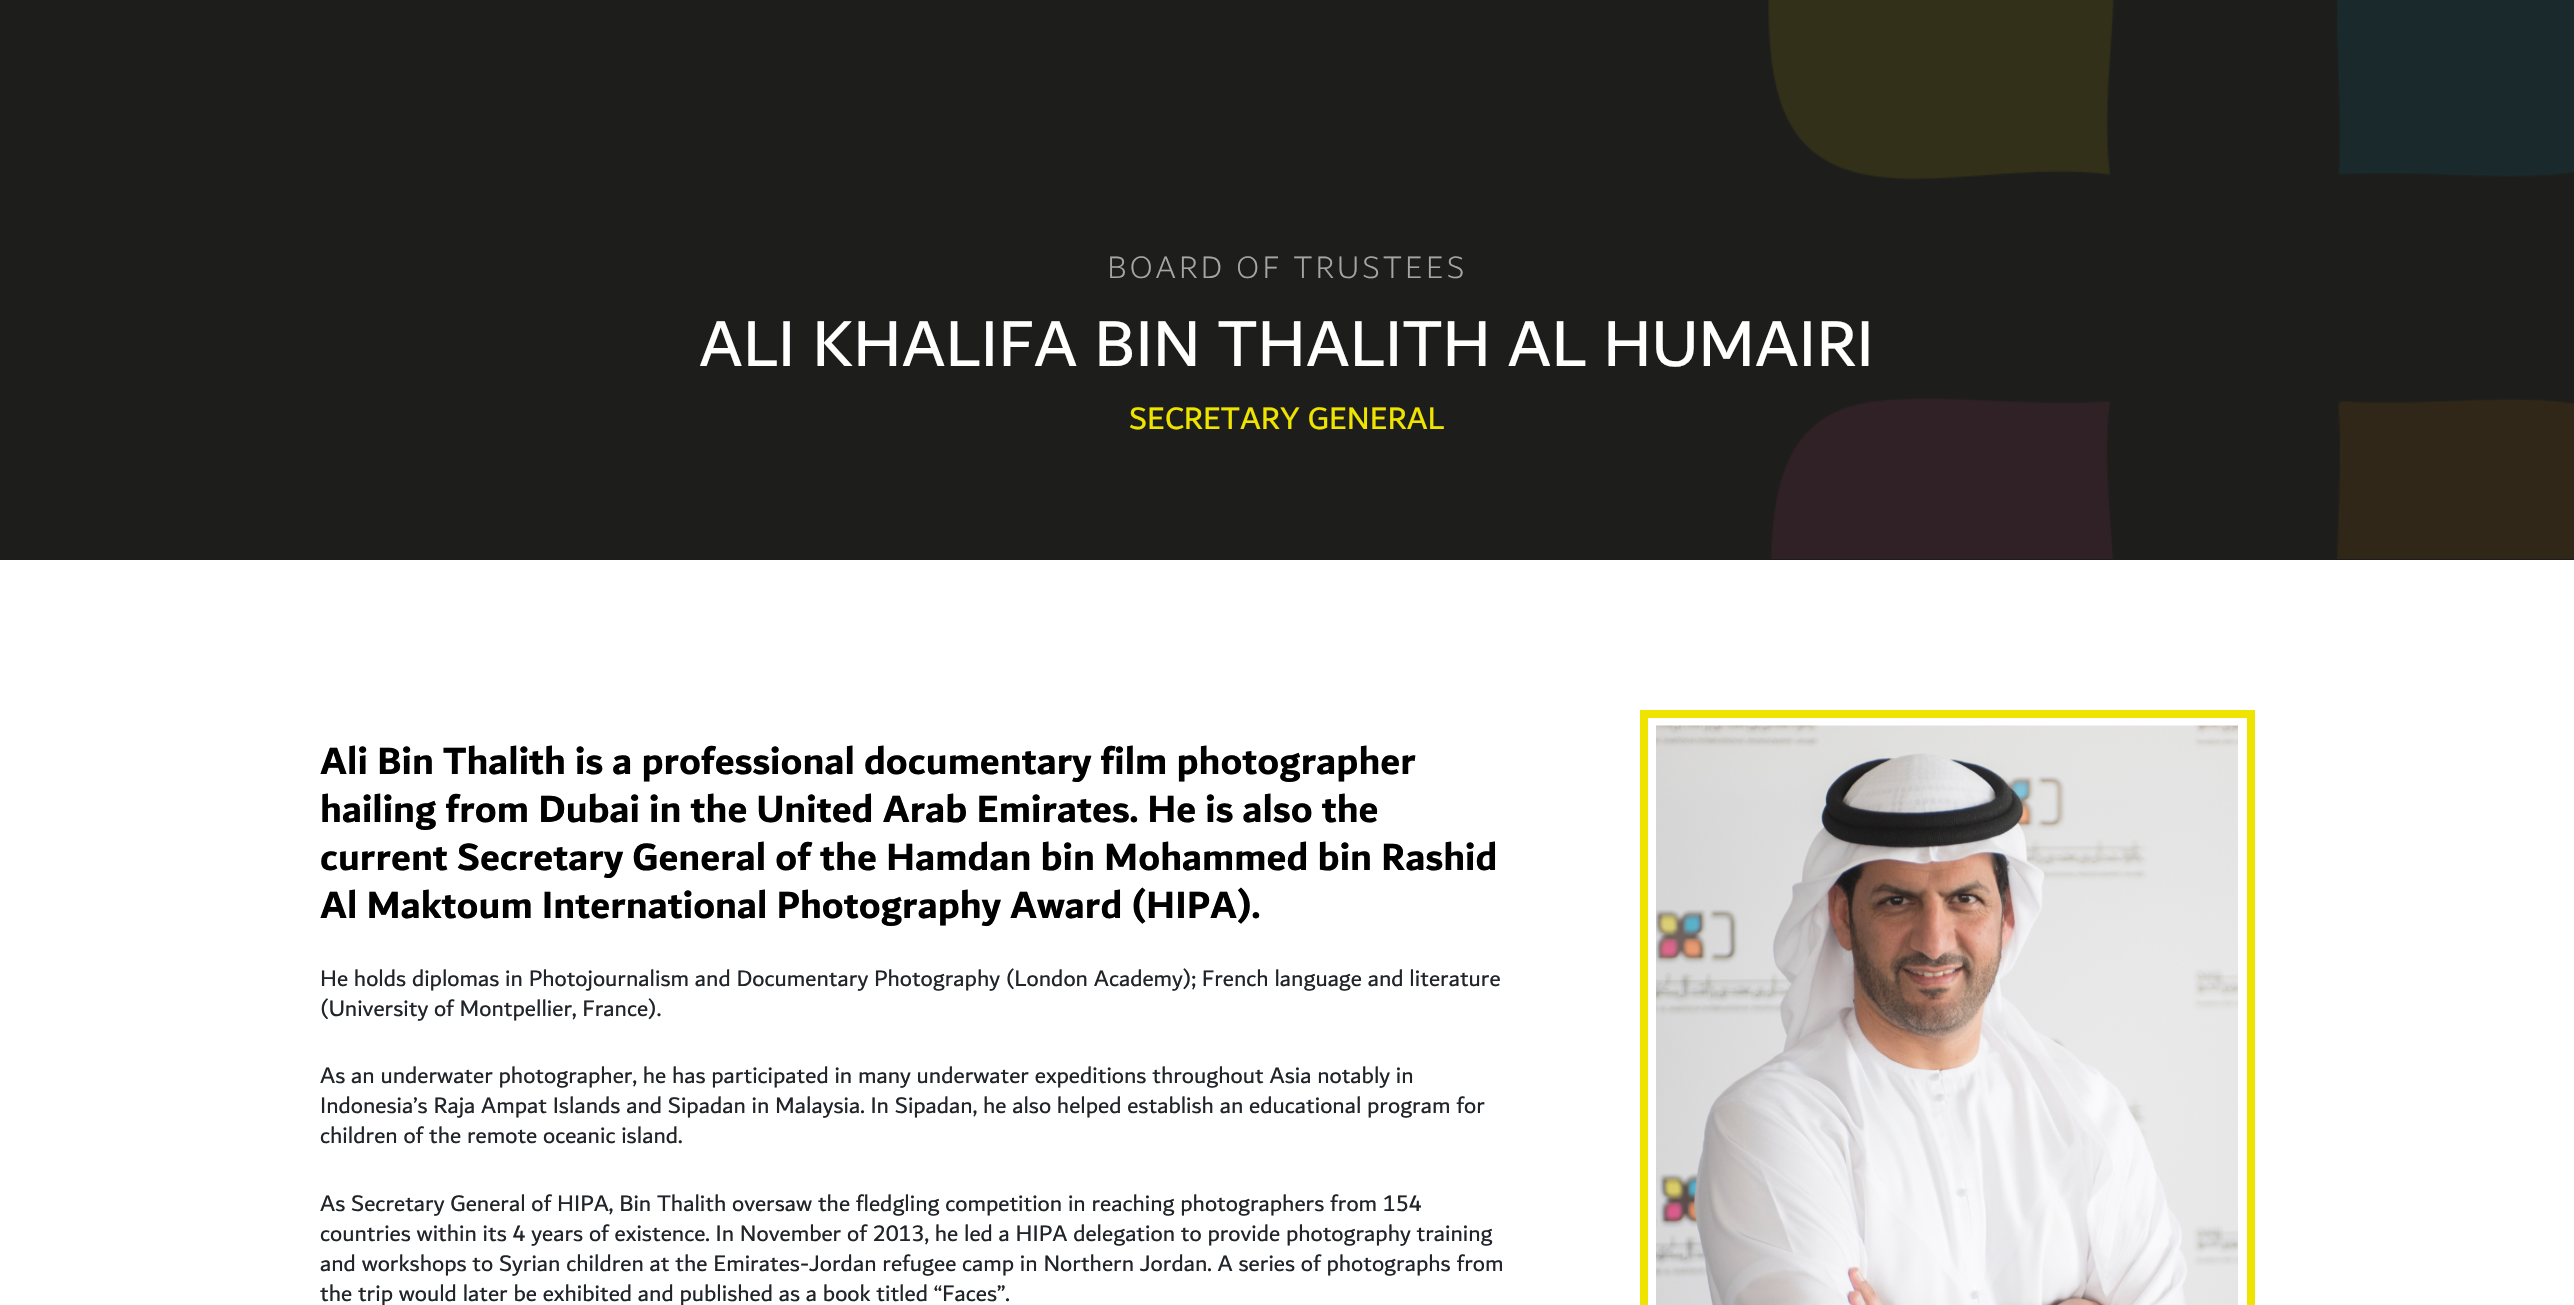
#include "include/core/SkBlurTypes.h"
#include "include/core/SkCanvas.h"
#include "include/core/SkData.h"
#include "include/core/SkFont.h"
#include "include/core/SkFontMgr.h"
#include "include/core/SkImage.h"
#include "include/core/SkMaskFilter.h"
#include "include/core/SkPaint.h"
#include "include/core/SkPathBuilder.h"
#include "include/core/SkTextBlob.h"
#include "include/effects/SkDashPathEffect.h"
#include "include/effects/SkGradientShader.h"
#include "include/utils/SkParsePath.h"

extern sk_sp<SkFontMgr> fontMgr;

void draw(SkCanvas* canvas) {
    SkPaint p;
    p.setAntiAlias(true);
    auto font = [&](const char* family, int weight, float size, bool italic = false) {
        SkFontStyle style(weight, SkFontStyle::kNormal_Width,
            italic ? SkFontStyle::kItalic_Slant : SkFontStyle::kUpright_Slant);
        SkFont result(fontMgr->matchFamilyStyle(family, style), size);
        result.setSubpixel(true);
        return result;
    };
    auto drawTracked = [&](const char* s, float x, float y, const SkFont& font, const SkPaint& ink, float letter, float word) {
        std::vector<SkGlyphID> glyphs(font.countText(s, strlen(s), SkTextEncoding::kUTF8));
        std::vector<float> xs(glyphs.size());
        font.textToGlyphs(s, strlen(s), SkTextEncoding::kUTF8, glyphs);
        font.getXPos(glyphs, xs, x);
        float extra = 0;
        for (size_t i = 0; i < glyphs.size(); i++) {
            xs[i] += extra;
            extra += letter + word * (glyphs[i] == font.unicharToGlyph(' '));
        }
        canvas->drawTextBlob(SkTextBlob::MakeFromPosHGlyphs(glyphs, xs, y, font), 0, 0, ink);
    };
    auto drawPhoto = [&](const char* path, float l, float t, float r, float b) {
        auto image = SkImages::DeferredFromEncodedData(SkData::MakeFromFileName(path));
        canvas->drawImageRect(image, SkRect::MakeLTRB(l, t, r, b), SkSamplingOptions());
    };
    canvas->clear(0xFFFFFFFF);
    p.setColor(0xFF1D1D1B);
    canvas->drawRect(SkRect::MakeLTRB(0, 0, 2574, 560), p);
    drawPhoto("media/1.png", 1768, 0, 2574, 559);
    auto font1 = font("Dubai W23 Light", 300, 33);
    p.setColor(0xFFA5A5A4);
    drawTracked("BOARD OF TRUSTEES", 1107, 278, font1, p, 3, 0);
    auto font2 = font("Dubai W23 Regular", 400, 69);
    p.setColor(0xFFFFFFFF);
    canvas->drawString("ALI KHALIFA BIN THALITH AL HUMAIRI", 699, 366, font2, p);
    auto font3 = font("Dubai W23 Regular", 400, 33);
    p.setColor(0xFFEFE400);
    canvas->drawString("SECRETARY GENERAL", 1129, 429, font3, p);
    auto font4 = font("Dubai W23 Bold", 700, 40.5f);
    p.setColor(0xFF000000);
    {
        const struct { const char* s; float x, y; } items[] = {
            {"Ali Bin Thalith is a professional documentary film photographer", 320, 774},
            {"hailing from Dubai in the United Arab Emirates. He is also the", 320, 822},
            {"current Secretary General of the Hamdan bin Mohammed bin Rashid", 320, 870},
            {"Al Maktoum International Photography Award (HIPA).", 320, 918},
        };
        for (auto [s, x, y] : items) {
            canvas->drawString(s, x, y, font4, p);
        }
    }
    auto font5 = font("Dubai W23 Regular", 400, 24);
    p.setColor(0xFF212529);
    {
        const struct { const char* s; float x, y; } items[] = {
            {"He holds diplomas in Photojournalism and Documentary Photography (London Academy); French language and literature", 320, 986},
            {"(University of Montpellier, France).", 320, 1016},
            {"As an underwater photographer, he has participated in many underwater expeditions throughout Asia notably in", 320, 1083},
            {"Indonesia’s Raja Ampat Islands and Sipadan in Malaysia. In Sipadan, he also helped establish an educational program for", 320, 1113},
            {"children of the remote oceanic island.", 320, 1143},
            {"As Secretary General of HIPA, Bin Thalith oversaw the fledgling competition in reaching photographers from 154", 320, 1211},
            {"countries within its 4 years of existence. In November of 2013, he led a HIPA delegation to provide photography training", 320, 1241},
            {"and workshops to Syrian children at the Emirates-Jordan refugee camp in Northern Jordan. A series of photographs from", 320, 1271},
            {"the trip would later be exhibited and published as a book titled “Faces”.", 320, 1301},
        };
        for (auto [s, x, y] : items) {
            canvas->drawString(s, x, y, font5, p);
        }
    }
    p.setStyle(SkPaint::kStroke_Style);
    p.setStrokeWidth(8);
    p.setColor(0xFFEFE400);
    canvas->drawRect(SkRect::MakeLTRB(1644, 714, 2251, 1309), p);
    drawPhoto("media/2.png", 1656, 725, 2238, 1305);
}
